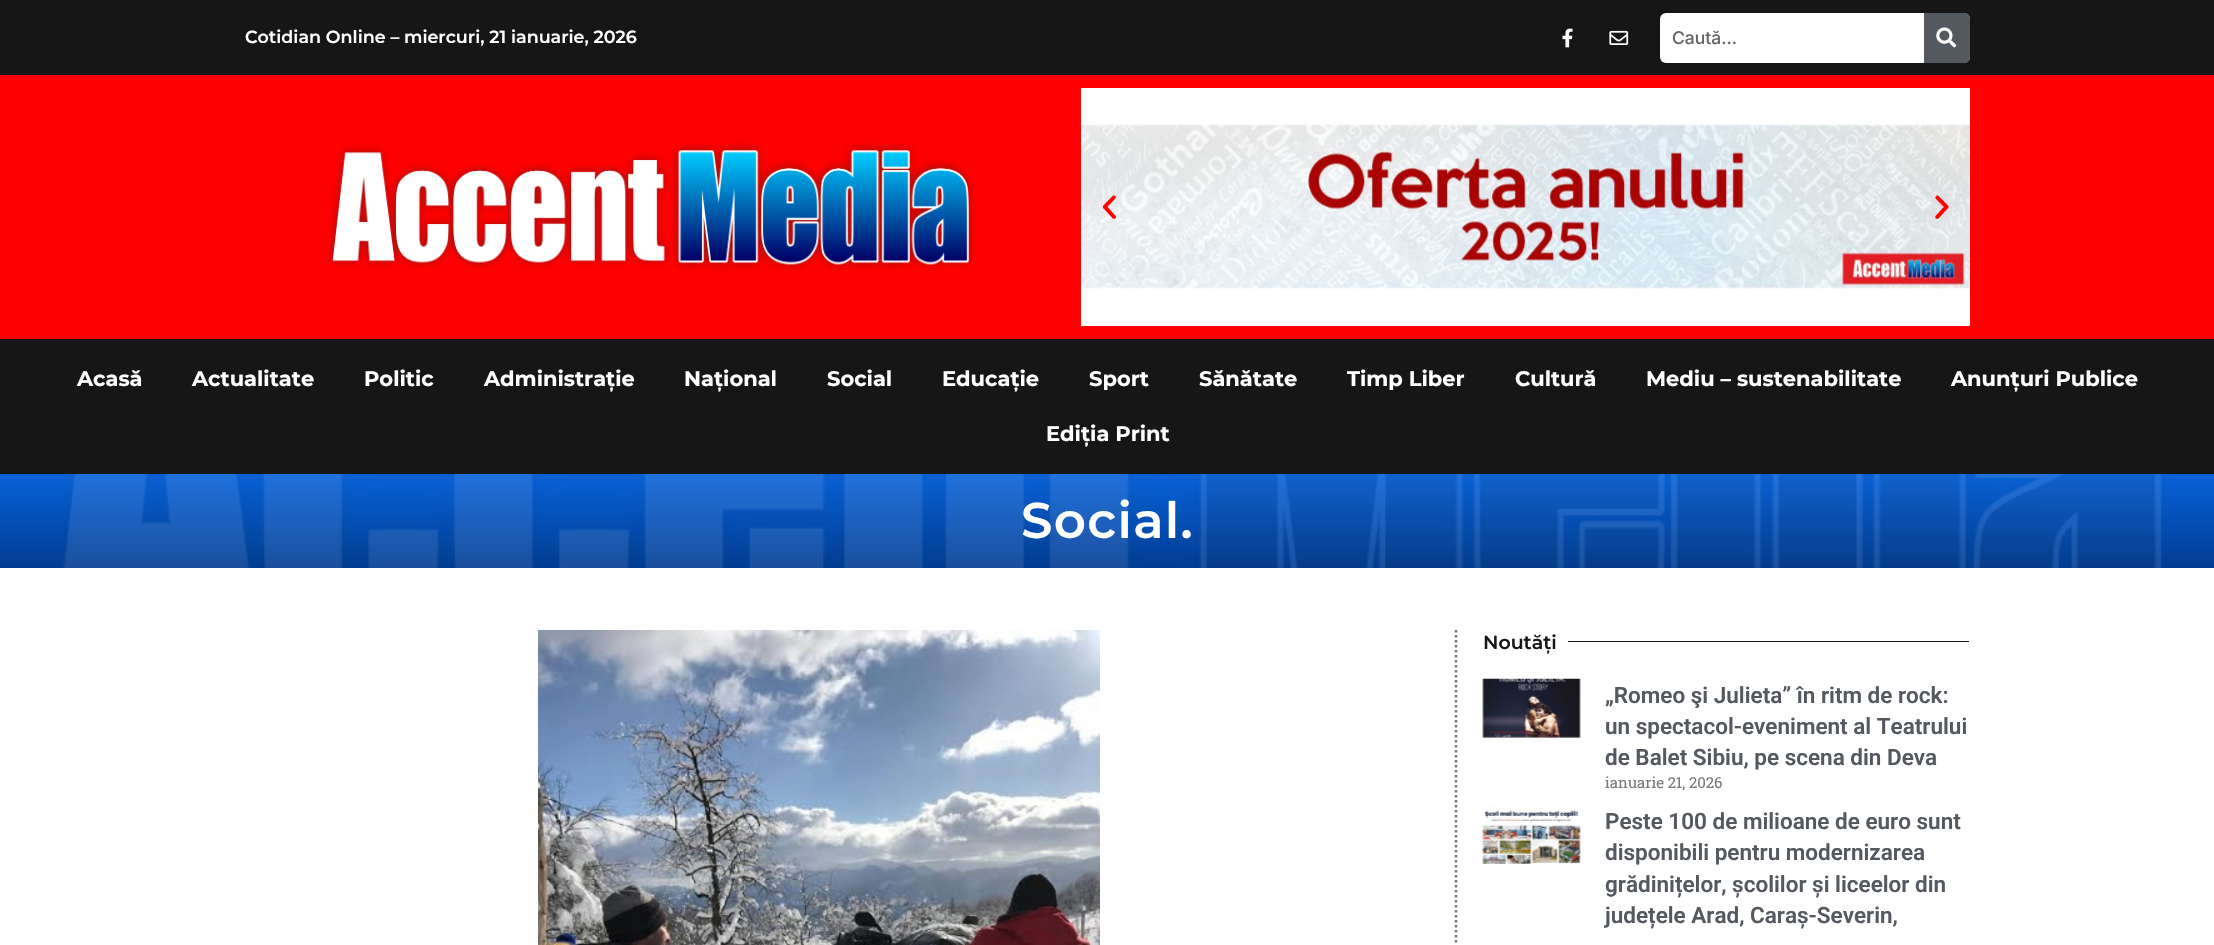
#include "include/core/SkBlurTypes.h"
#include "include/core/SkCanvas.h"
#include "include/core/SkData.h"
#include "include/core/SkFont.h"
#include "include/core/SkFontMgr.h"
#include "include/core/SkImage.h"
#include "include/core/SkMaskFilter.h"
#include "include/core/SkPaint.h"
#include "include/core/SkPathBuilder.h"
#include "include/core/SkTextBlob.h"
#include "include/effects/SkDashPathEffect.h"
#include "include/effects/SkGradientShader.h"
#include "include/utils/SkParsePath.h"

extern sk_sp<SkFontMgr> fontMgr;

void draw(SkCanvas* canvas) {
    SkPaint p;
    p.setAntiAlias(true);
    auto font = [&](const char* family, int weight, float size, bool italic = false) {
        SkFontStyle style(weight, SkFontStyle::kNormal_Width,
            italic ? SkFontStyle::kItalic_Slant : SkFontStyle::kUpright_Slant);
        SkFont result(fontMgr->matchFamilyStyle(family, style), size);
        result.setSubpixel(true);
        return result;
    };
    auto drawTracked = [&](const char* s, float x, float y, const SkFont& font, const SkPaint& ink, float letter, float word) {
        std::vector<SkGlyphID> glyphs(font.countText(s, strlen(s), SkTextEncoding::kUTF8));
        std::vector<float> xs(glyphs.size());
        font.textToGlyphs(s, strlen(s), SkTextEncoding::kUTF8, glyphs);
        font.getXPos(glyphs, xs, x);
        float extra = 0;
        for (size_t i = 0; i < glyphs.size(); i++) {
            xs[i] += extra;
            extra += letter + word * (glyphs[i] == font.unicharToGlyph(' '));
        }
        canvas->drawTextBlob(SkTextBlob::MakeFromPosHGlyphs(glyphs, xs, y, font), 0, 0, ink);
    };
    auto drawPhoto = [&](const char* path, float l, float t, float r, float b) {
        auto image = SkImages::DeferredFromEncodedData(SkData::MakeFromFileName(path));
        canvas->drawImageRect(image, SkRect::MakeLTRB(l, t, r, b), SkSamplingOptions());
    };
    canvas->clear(0xFFFFFFFF);
    p.setColor(0xFF161616);
    canvas->drawRect(SkRect::MakeLTRB(0, 0, 2214, 75), p);
    auto font1 = font("Montserrat", 600, 17.5f);
    p.setColor(0xFFFFFFFF);
    canvas->drawString("Cotidian Online – miercuri, 21 ianuarie, 2026", 245, 43, font1, p);
    drawPhoto("media/1.png", 1562, 28, 1573, 48);
    drawPhoto("media/2.png", 1609, 30, 1629, 45);
    canvas->drawRoundRect(SkRect::MakeLTRB(1660, 13, 1970, 63), 6, 6, p);
    auto font2 = font("Inter", 500, 17.5f);
    p.setColor(0xFF666666);
    canvas->drawString("Caută...", 1672, 44, font2, p);
    p.setColor(0xFF54595F);
    canvas->drawPath(SkPathBuilder().moveTo(1924, 13).lineTo(1964, 13).cubicTo(1967.5f, 13, 1970, 15.5f, 1970, 19).lineTo(1970, 57).cubicTo(1970, 60.5f, 1967.5f, 63, 1964, 63).lineTo(1924, 63).close().detach(), p);
    drawPhoto("media/3.png", 1936, 27, 1957, 48);
    p.setColor(0xFFFF0000);
    canvas->drawRect(SkRect::MakeLTRB(0, 75, 2214, 339), p);
    drawPhoto("media/4.png", 327, 142, 975, 271);
    p.setColor(0xFFFFFFFF);
    canvas->drawRect(SkRect::MakeLTRB(1081, 88, 1970, 326), p);
    drawPhoto("media/5.png", 1081, 124, 1970, 289);
    drawPhoto("media/6.png", 1081, 326, 1082, 327);
    drawPhoto("media/7.png", 1102, 195, 1116, 219);
    drawPhoto("media/8.png", 1935, 195, 1949, 219);
    p.setColor(0xFF161616);
    canvas->drawRect(SkRect::MakeLTRB(0, 339, 2214, 474), p);
    auto font3 = font("Montserrat", 700, 21);
    p.setColor(0xFFFFFFFF);
    {
        const struct { const char* s; float x, y; } items[] = {
            {"Acasă", 77, 386},
            {"Actualitate", 192, 386},
            {"Politic", 364, 386},
            {"Administrație", 484, 386},
            {"Național", 684, 386},
            {"Social", 827, 386},
            {"Educație", 942, 386},
            {"Sport", 1089, 386},
            {"Sănătate", 1199, 386},
            {"Timp Liber", 1347, 386},
            {"Cultură", 1515, 386},
            {"Mediu – sustenabilitate", 1646, 386},
            {"Anunțuri Publice", 1951, 386},
            {"Ediția Print", 1046, 441},
        };
        for (auto [s, x, y] : items) {
            canvas->drawString(s, x, y, font3, p);
        }
    }
    {
        const SkColor colors[] = {0xFF0762D9, 0xFF013C93};
        const float stops[] = {0, 1};
        const SkPoint ends[] = {{1108, 474}, {1108, 568}};
        p.setShader(SkGradientShader::MakeLinear(ends, colors, stops, 2, SkTileMode::kClamp));
        p.setAlpha(255);
    }
    canvas->drawRect(SkRect::MakeLTRB(0, 474, 2214, 568), p);
    drawPhoto("media/9.png", 63, 474, 2162, 568);
    auto font4 = font("Montserrat", 600, 50);
    p.setShader(nullptr);
    p.setColor(0xFFFFFFFF);
    drawTracked("Social.", 1021, 538, font4, p, 1.25f, 0);
    p.setStyle(SkPaint::kStroke_Style);
    p.setStrokeWidth(2.5f);
    p.setColor(0xFF7A7A7A);
    p.setPathEffect(SkDashPathEffect::Make({{2.5f, 2.5f}}, 0));
    canvas->drawPath(SkPathBuilder().moveTo(1456, 630).lineTo(1456, 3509).detach(), p);
    p.setPathEffect(nullptr);
    drawPhoto("media/10.png", 538, 630, 1100, 945);
    auto font5 = font("Montserrat", 600, 19);
    p.setStyle(SkPaint::kFill_Style);
    p.setColor(0xFF161616);
    canvas->drawString("Noutăți", 1483, 649, font5, p);
    canvas->drawRect(SkRect::MakeLTRB(1568, 641, 1969, 642), p);
    drawPhoto("media/11.png", 1482, 678, 1581, 738);
    auto font6 = font("Roboto", 600, 22.5f);
    p.setColor(0xFF54595F);
    {
        const struct { const char* s; float x, y; } items[] = {
            {"„Romeo şi Julieta” în ritm de rock:", 1605, 703},
            {"un spectacol-eveniment al Teatrului", 1605, 734},
            {"de Balet Sibiu, pe scena din Deva", 1605, 765},
        };
        for (auto [s, x, y] : items) {
            canvas->drawString(s, x, y, font6, p);
        }
    }
    auto font7 = font("Roboto Slab", 400, 15);
    p.setColor(0xFF7A7A7A);
    canvas->drawString("ianuarie 21, 2026", 1605, 788, font7, p);
    drawPhoto("media/12.png", 1482, 805, 1581, 864);
    p.setColor(0xFF54595F);
    {
        const struct { const char* s; float x, y; } items[] = {
            {"Peste 100 de milioane de euro sunt", 1605, 829},
            {"disponibili pentru modernizarea", 1605, 860},
            {"grădinițelor, școlilor și liceelor din", 1605, 892},
            {"județele Arad, Caraș-Severin,", 1605, 923},
        };
        for (auto [s, x, y] : items) {
            canvas->drawString(s, x, y, font6, p);
        }
    }
}
